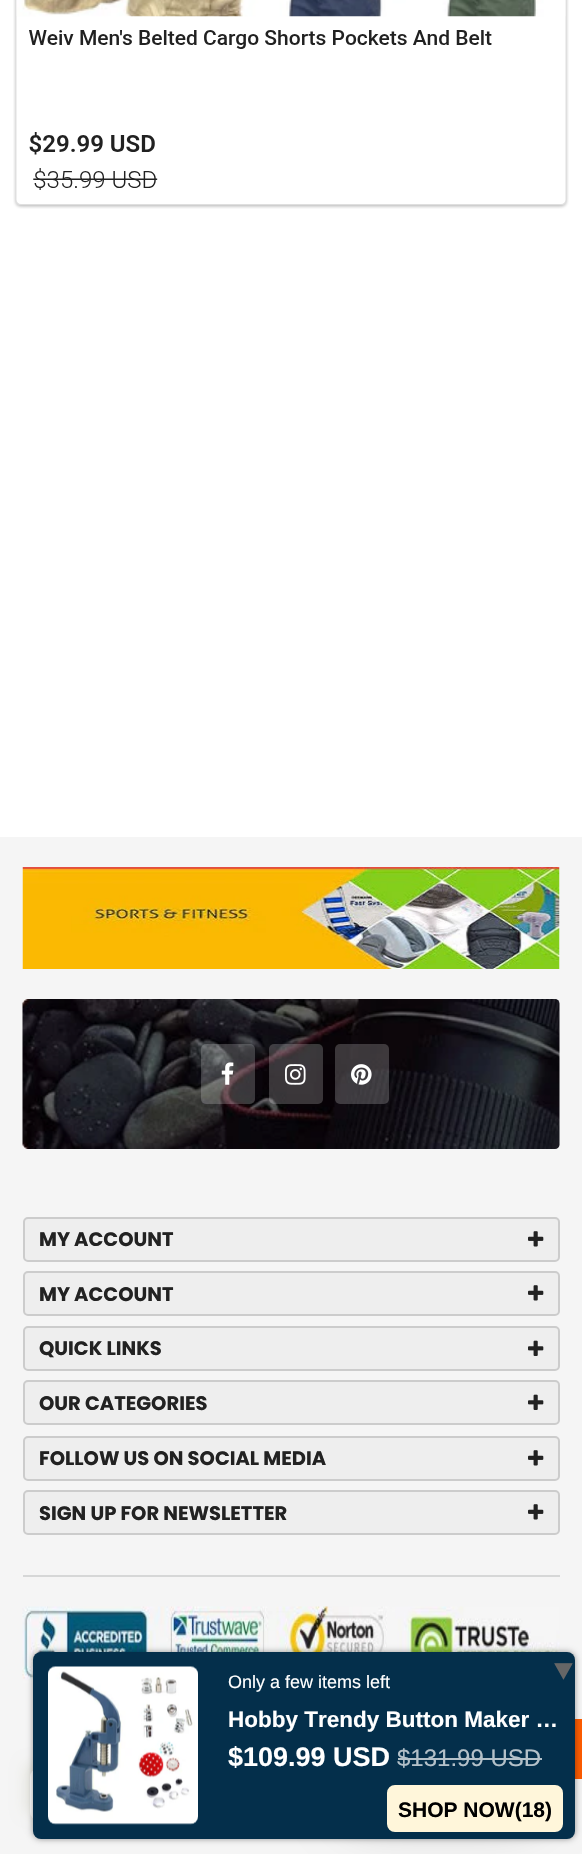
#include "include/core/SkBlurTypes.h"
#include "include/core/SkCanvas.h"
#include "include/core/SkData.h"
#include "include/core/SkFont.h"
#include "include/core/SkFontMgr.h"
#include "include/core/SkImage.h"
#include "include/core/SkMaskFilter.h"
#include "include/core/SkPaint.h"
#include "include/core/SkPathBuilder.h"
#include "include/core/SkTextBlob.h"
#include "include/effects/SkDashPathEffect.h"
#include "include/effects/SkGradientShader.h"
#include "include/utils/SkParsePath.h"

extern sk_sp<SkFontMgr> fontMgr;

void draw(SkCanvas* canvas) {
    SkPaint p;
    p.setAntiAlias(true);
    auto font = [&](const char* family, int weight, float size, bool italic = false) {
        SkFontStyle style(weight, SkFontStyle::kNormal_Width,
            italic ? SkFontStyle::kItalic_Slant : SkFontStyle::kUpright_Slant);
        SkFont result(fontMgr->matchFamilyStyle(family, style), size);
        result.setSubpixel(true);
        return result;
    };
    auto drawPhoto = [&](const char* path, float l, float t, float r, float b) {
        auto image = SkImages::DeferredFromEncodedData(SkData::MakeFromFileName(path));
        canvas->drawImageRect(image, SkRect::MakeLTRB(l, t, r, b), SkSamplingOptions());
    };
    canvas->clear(0xFFFFFFFF);
    drawPhoto("media/1.png", 13, 0, 569, 209);
    p.setColor(0xFFF5F5F5);
    canvas->drawRect(SkRect::MakeLTRB(0, 837, 582, 1854), p);
    drawPhoto("media/2.png", 22, 867, 560, 969);
    drawPhoto("media/3.png", 22, 999, 560, 1149);
    p.setColor(0x33FFFFFF);
    canvas->drawRoundRect(SkRect::MakeLTRB(201, 1044, 255, 1104), 5, 5, p);
    drawPhoto("media/4.png", 221, 1062, 234, 1085);
    canvas->drawRoundRect(SkRect::MakeLTRB(269, 1044, 323, 1104), 5, 5, p);
    drawPhoto("media/5.png", 285, 1064, 306, 1085);
    canvas->drawRoundRect(SkRect::MakeLTRB(335, 1044, 389, 1104), 5, 5, p);
    drawPhoto("media/6.png", 351, 1064, 372, 1085);
    p.setColor(0xFFD6D7D7);
    canvas->drawRect(SkRect::MakeLTRB(23, 1575, 560, 1577), p);
    p.setColor(0xFFEEEEEE);
    canvas->drawRoundRect(SkRect::MakeLTRB(24, 1218, 559, 1261), 4, 4, p);
    p.setStyle(SkPaint::kStroke_Style);
    p.setStrokeWidth(2);
    p.setColor(0xFFCCCCCC);
    canvas->drawRoundRect(SkRect::MakeLTRB(24, 1218, 559, 1261), 4, 4, p);
    auto font1 = font("Poppins", 700, 19.5f);
    p.setStyle(SkPaint::kFill_Style);
    p.setColor(0xFF222222);
    canvas->drawString("MY ACCOUNT", 39, 1246, font1, p);
    drawPhoto("media/7.png", 528, 1231, 544, 1247);
    p.setColor(0xFFEEEEEE);
    canvas->drawRoundRect(SkRect::MakeLTRB(24, 1272, 559, 1315), 4, 4, p);
    p.setStyle(SkPaint::kStroke_Style);
    p.setColor(0xFFCCCCCC);
    canvas->drawRoundRect(SkRect::MakeLTRB(24, 1272, 559, 1315), 4, 4, p);
    p.setStyle(SkPaint::kFill_Style);
    p.setColor(0xFF222222);
    canvas->drawString("MY ACCOUNT", 39, 1301, font1, p);
    drawPhoto("media/7.png", 528, 1285, 544, 1301);
    p.setColor(0xFFEEEEEE);
    canvas->drawRoundRect(SkRect::MakeLTRB(24, 1327, 559, 1370), 4, 4, p);
    p.setStyle(SkPaint::kStroke_Style);
    p.setColor(0xFFCCCCCC);
    canvas->drawRoundRect(SkRect::MakeLTRB(24, 1327, 559, 1370), 4, 4, p);
    p.setStyle(SkPaint::kFill_Style);
    p.setColor(0xFF222222);
    canvas->drawString("QUICK LINKS", 39, 1355, font1, p);
    drawPhoto("media/8.png", 528, 1340, 544, 1356);
    p.setColor(0xFFEEEEEE);
    canvas->drawRoundRect(SkRect::MakeLTRB(24, 1381, 559, 1424), 4, 4, p);
    p.setStyle(SkPaint::kStroke_Style);
    p.setColor(0xFFCCCCCC);
    canvas->drawRoundRect(SkRect::MakeLTRB(24, 1381, 559, 1424), 4, 4, p);
    p.setStyle(SkPaint::kFill_Style);
    p.setColor(0xFF222222);
    canvas->drawString("OUR CATEGORIES", 39, 1410, font1, p);
    drawPhoto("media/8.png", 528, 1394, 544, 1410);
    p.setColor(0xFFEEEEEE);
    canvas->drawRoundRect(SkRect::MakeLTRB(24, 1437, 559, 1480), 4, 4, p);
    p.setStyle(SkPaint::kStroke_Style);
    p.setColor(0xFFCCCCCC);
    canvas->drawRoundRect(SkRect::MakeLTRB(24, 1437, 559, 1480), 4, 4, p);
    p.setStyle(SkPaint::kFill_Style);
    p.setColor(0xFF222222);
    canvas->drawString("FOLLOW US ON SOCIAL MEDIA", 39, 1465, font1, p);
    drawPhoto("media/7.png", 528, 1450, 544, 1466);
    p.setColor(0xFFEEEEEE);
    canvas->drawRoundRect(SkRect::MakeLTRB(24, 1491, 559, 1534), 4, 4, p);
    p.setStyle(SkPaint::kStroke_Style);
    p.setColor(0xFFCCCCCC);
    canvas->drawRoundRect(SkRect::MakeLTRB(24, 1491, 559, 1534), 4, 4, p);
    p.setStyle(SkPaint::kFill_Style);
    p.setColor(0xFF222222);
    canvas->drawString("SIGN UP FOR NEWSLETTER", 39, 1520, font1, p);
    drawPhoto("media/7.png", 528, 1504, 544, 1520);
    drawPhoto("media/9.png", 22, 1606, 560, 1683);
    p.setColor(0xFFFF5C00);
    canvas->drawRect(SkRect::MakeLTRB(575, 1719, 582, 1779), p);
    p.setColor(0xFFE8E8E2);
    p.setMaskFilter(SkMaskFilter::MakeBlur(kNormal_SkBlurStyle, 7));
    canvas->drawRoundRect(SkRect::MakeLTRB(24, 1763, 180, 1814), 8, 8, p);
    p.setMaskFilter(nullptr);
    p.setMaskFilter(SkMaskFilter::MakeBlur(kNormal_SkBlurStyle, 7));
    canvas->drawRoundRect(SkRect::MakeLTRB(36, 1775, 192, 1826), 8, 8, p);
    p.setMaskFilter(nullptr);
    p.setColor(0xFFFFFFFF);
    canvas->drawRoundRect(SkRect::MakeLTRB(30, 1769, 186, 1820), 8, 8, p);
    p.setColor(0x66000000);
    p.setMaskFilter(SkMaskFilter::MakeBlur(kNormal_SkBlurStyle, 3));
    canvas->drawRoundRect(SkRect::MakeLTRB(33, 1652, 575, 1839), 8, 8, p);
    p.setMaskFilter(nullptr);
    p.setColor(0x26000000);
    p.setMaskFilter(SkMaskFilter::MakeBlur(kNormal_SkBlurStyle, 22.5f));
    canvas->drawRoundRect(SkRect::MakeLTRB(335, 1737, 552, 1827), 45, 45, p);
    p.setMaskFilter(nullptr);
    p.setColor(0xFF042F4B);
    canvas->drawRoundRect(SkRect::MakeLTRB(33, 1652, 575, 1839), 8, 8, p);
    auto font2 = font("Noto Sans", 400, 63);
    p.setColor(0xFF666666);
    canvas->save();
    canvas->rotate(90, 540, 1659);
    canvas->drawString("‣", 540, 1659, font2, p);
    canvas->restore();
    drawPhoto("media/10.png", 48, 1666, 198, 1825);
    auto font3 = font("Liberation Sans", 400, 18);
    p.setColor(0xFFFFFFFF);
    canvas->drawString("Only a few items left", 228, 1688, font3, p);
    auto font4 = font("Liberation Sans", 700, 22.5f);
    canvas->drawString("Hobby Trendy Button Maker …", 228, 1727, font4, p);
    auto font5 = font("Liberation Sans", 700, 27);
    canvas->drawString("$109.99 USD", 228, 1766, font5, p);
    auto font6 = font("Liberation Sans", 400, 24);
    p.setColor(0xFFB4C1C9);
    canvas->drawString("$131.99 USD", 397, 1766, font6, p);
    canvas->drawRect(SkRect::MakeLTRB(398, 1758, 542, 1760), p);
    p.setColor(0xFFFFF6DA);
    canvas->drawRoundRect(SkRect::MakeLTRB(388, 1786, 562, 1831), 7, 7, p);
    p.setStyle(SkPaint::kStroke_Style);
    canvas->drawRoundRect(SkRect::MakeLTRB(388, 1786, 562, 1831), 7, 7, p);
    auto font7 = font("Liberation Sans", 700, 21);
    p.setStyle(SkPaint::kFill_Style);
    p.setColor(0xFF000000);
    canvas->drawString("SHOP NOW(18)", 398, 1817, font7, p);
}
